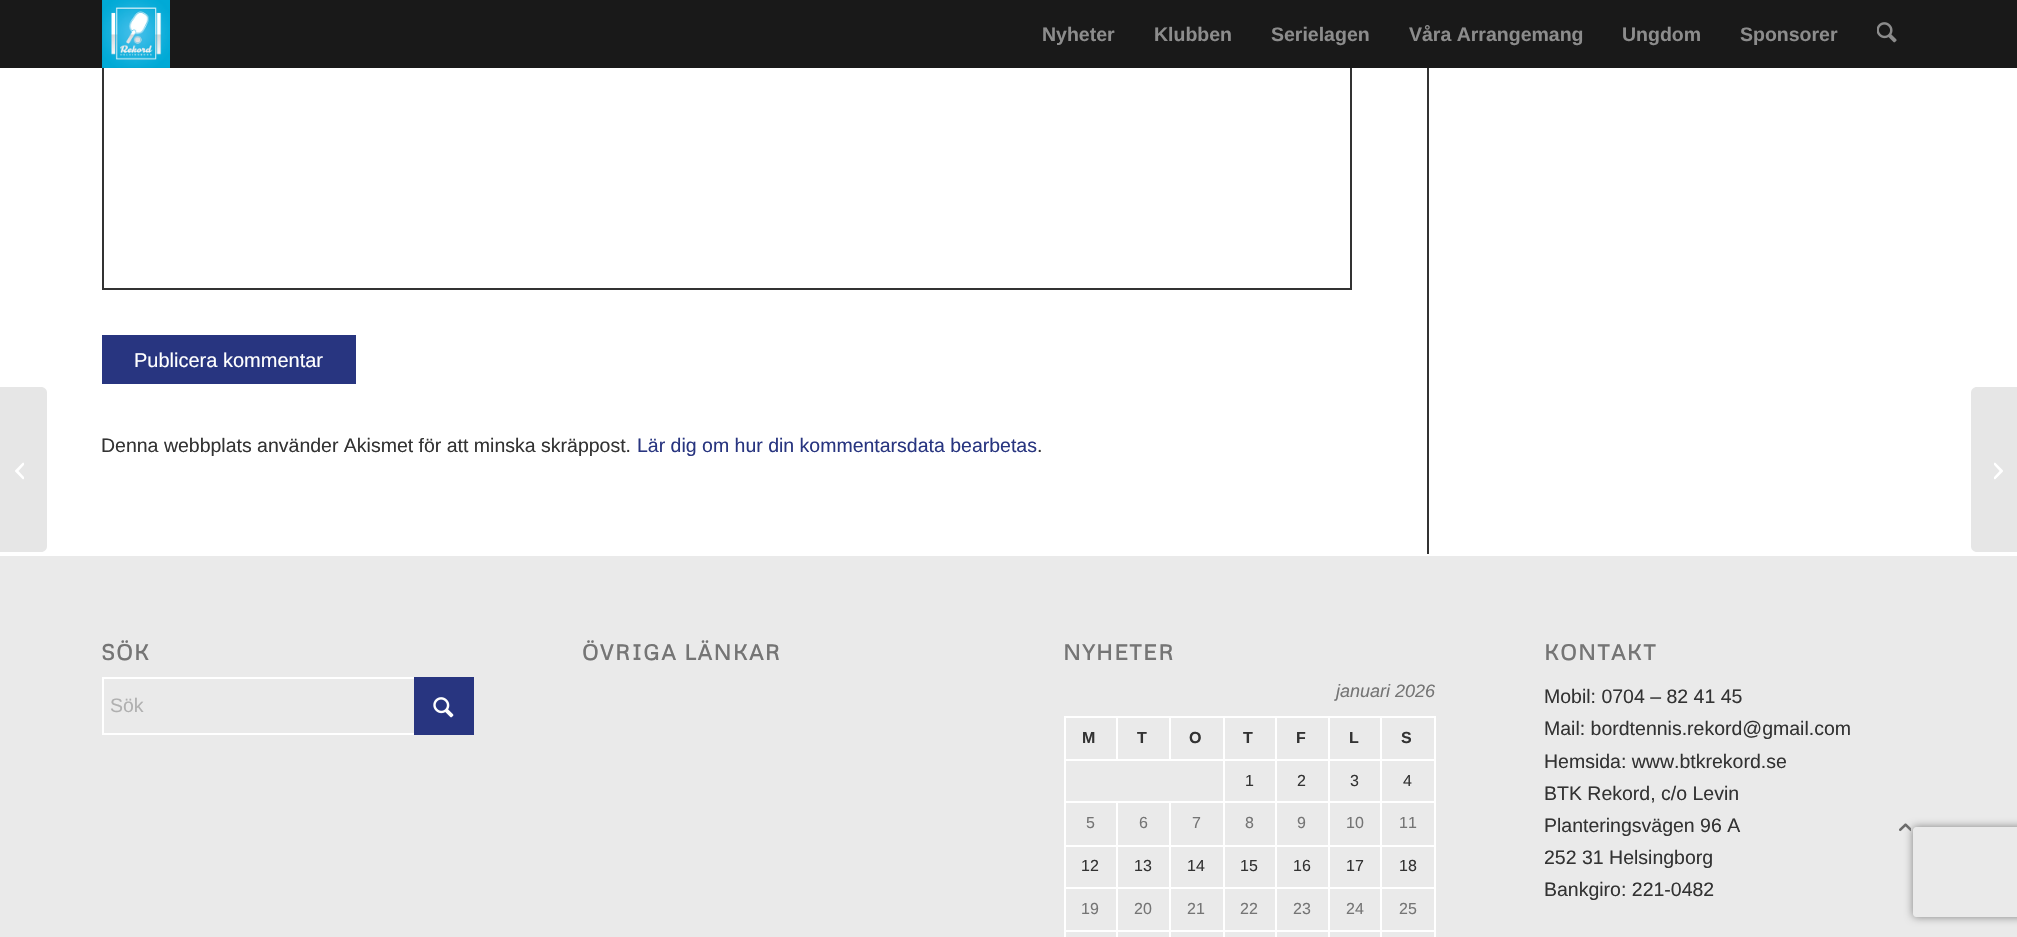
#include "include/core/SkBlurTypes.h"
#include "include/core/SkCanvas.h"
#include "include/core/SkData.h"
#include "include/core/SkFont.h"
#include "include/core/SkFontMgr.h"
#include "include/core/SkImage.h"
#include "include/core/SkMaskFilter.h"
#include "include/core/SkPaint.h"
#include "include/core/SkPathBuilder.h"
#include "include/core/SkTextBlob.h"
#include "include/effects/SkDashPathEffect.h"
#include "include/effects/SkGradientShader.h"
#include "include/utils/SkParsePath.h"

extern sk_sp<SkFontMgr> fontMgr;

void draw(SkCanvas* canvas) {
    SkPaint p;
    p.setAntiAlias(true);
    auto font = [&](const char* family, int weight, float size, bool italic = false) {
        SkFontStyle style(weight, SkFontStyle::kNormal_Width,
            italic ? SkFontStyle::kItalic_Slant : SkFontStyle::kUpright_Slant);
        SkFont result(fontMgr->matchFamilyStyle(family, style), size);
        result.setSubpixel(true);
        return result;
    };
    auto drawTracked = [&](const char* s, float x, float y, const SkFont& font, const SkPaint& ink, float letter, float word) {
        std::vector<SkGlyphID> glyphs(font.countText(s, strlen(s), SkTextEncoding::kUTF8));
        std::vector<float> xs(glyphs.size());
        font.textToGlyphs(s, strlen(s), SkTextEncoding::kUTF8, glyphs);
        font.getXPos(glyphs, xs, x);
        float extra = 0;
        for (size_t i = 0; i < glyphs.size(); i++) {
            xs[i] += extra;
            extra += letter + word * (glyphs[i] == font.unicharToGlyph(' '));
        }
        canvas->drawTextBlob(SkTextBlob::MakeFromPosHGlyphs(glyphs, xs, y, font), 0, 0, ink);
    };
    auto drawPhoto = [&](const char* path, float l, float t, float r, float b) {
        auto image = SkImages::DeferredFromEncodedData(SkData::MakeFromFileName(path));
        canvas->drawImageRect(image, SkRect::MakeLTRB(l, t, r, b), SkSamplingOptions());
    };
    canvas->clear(0xFFFFFFFF);
    p.setStyle(SkPaint::kStroke_Style);
    p.setStrokeWidth(2);
    p.setColor(0xFF333333);
    canvas->drawRect(SkRect::MakeLTRB(103, 66, 1351, 289), p);
    p.setStyle(SkPaint::kFill_Style);
    p.setColor(0xFF191919);
    canvas->drawRect(SkRect::MakeLTRB(0, 0, 2017, 68), p);
    drawPhoto("media/1.png", 102, 0, 170, 68);
    auto font1 = font("Liberation Sans", 700, 19.5f);
    p.setColor(0xFF8C8C8C);
    {
        const struct { const char* s; float x, y; } items[] = {
            {"Nyheter", 1042, 41},
            {"Klubben", 1154, 41},
            {"Serielagen", 1271, 41},
            {"Våra Arrangemang", 1409, 41},
            {"Ungdom", 1622, 41},
            {"Sponsorer", 1740, 41},
        };
        for (auto [s, x, y] : items) {
            canvas->drawString(s, x, y, font1, p);
        }
    }
    drawPhoto("media/2.png", 1877, 22, 1897, 43);
    p.setColor(0xFFE6E6E6);
    canvas->drawPath(SkPathBuilder().moveTo(0, 387).lineTo(41, 387).cubicTo(44.5f, 387, 47, 389.5f, 47, 393).lineTo(47, 546).cubicTo(47, 549.5f, 44.5f, 552, 41, 552).lineTo(0, 552).close().detach(), p);
    drawPhoto("media/3.png", 15, 462, 24, 480);
    p.setColor(0xFF333333);
    canvas->drawRect(SkRect::MakeLTRB(1427, 68, 1429, 554), p);
    p.setColor(0xFF283580);
    canvas->drawRect(SkRect::MakeLTRB(102, 335, 356, 384), p);
    auto font2 = font("Liberation Sans", 400, 20);
    p.setColor(0xFFFFFFFF);
    canvas->drawString("Publicera kommentar", 134, 367, font2, p);
    auto font3 = font("Liberation Sans", 400, 19.5f);
    p.setColor(0xFF333333);
    canvas->drawString("Denna webbplats använder Akismet för att minska skräppost.", 101, 452, font3, p);
    p.setColor(0xFF283580);
    canvas->drawString("Lär dig om hur din kommentarsdata bearbetas", 637, 452, font3, p);
    p.setColor(0xFF333333);
    canvas->drawString(".", 1037, 452, font3, p);
    p.setColor(0xFFEAEAEA);
    canvas->drawRect(SkRect::MakeLTRB(0, 556, 2017, 937), p);
    auto font4 = font("Metrophobic", 700, 21.5f);
    p.setColor(0xFF757575);
    drawTracked("SÖK", 101, 660, font4, p, 1.5f, 0);
    p.setStyle(SkPaint::kStroke_Style);
    p.setColor(0xFFFFFFFF);
    canvas->drawRect(SkRect::MakeLTRB(103, 678, 473, 734), p);
    p.setStyle(SkPaint::kFill_Style);
    p.setColor(0xFFB0B0B0);
    canvas->drawString("Sök", 110, 712, font3, p);
    p.setColor(0xFF283580);
    canvas->drawRect(SkRect::MakeLTRB(414, 677, 474, 735), p);
    drawPhoto("media/4.png", 433, 697, 454, 718);
    p.setColor(0xFF757575);
    drawTracked("ÖVRIGA LÄNKAR", 582, 660, font4, p, 1.5f, 0);
    drawTracked("NYHETER", 1063, 660, font4, p, 1.5f, 0);
    auto font5 = font("Liberation Sans", 400, 18, true);
    canvas->drawString("januari 2026", 1336, 697, font5, p);
    {
        const struct { float l, t, r, b; SkColor color; } items[] = {
            {1064, 716, 1436, 718, 0xFFFFFFFF},
            {1064, 759, 1436, 761, 0xFFFFFFFF},
            {1116, 716, 1118, 761, 0xFFFFFFFF},
            {1434, 801, 1436, 937, 0xFFFFFFFF},
            {1434, 759, 1436, 803, 0xFFFFFFFF},
            {1380, 930, 1382, 937, 0xFFFFFFFF},
            {1380, 930, 1436, 932, 0xFFFFFFFF},
            {1380, 887, 1382, 932, 0xFFFFFFFF},
            {1380, 887, 1436, 889, 0xFFFFFFFF},
            {1380, 845, 1382, 888, 0xFFFFFFFF},
            {1380, 845, 1436, 847, 0xFFFFFFFF},
            {1380, 801, 1382, 846, 0xFFFFFFFF},
            {1380, 801, 1436, 803, 0xFFFFFFFF},
            {1380, 759, 1382, 803, 0xFFFFFFFF},
            {1328, 930, 1330, 937, 0xFFFFFFFF},
            {1328, 930, 1382, 932, 0xFFFFFFFF},
            {1328, 887, 1330, 932, 0xFFFFFFFF},
            {1328, 887, 1382, 889, 0xFFFFFFFF},
            {1328, 845, 1330, 888, 0xFFFFFFFF},
            {1328, 845, 1382, 847, 0xFFFFFFFF},
            {1328, 801, 1330, 846, 0xFFFFFFFF},
            {1328, 801, 1382, 803, 0xFFFFFFFF},
            {1328, 759, 1330, 803, 0xFFFFFFFF},
            {1275, 930, 1277, 937, 0xFFFFFFFF},
            {1275, 930, 1329, 932, 0xFFFFFFFF},
            {1275, 887, 1277, 932, 0xFFFFFFFF},
            {1275, 887, 1329, 889, 0xFFFFFFFF},
            {1275, 845, 1277, 888, 0xFFFFFFFF},
            {1275, 845, 1329, 847, 0xFFFFFFFF},
            {1275, 801, 1277, 846, 0xFFFFFFFF},
            {1275, 801, 1329, 803, 0xFFFFFFFF},
            {1275, 759, 1277, 803, 0xFFFFFFFF},
            {1223, 930, 1225, 937, 0xFFFFFFFF},
            {1223, 930, 1277, 932, 0xFFFFFFFF},
            {1223, 887, 1225, 932, 0xFFFFFFFF},
            {1223, 887, 1277, 889, 0xFFFFFFFF},
            {1223, 845, 1225, 888, 0xFFFFFFFF},
            {1223, 845, 1277, 847, 0xFFFFFFFF},
            {1223, 801, 1225, 846, 0xFFFFFFFF},
            {1223, 801, 1277, 803, 0xFFFFFFFF},
            {1223, 759, 1225, 803, 0xFFFFFFFF},
            {1169, 930, 1171, 937, 0xFFFFFFFF},
            {1169, 930, 1224, 932, 0xFFFFFFFF},
            {1169, 887, 1171, 932, 0xFFFFFFFF},
            {1169, 887, 1224, 889, 0xFFFFFFFF},
            {1169, 845, 1171, 888, 0xFFFFFFFF},
            {1169, 845, 1224, 847, 0xFFFFFFFF},
            {1169, 801, 1171, 846, 0xFFFFFFFF},
            {1116, 930, 1118, 937, 0xFFFFFFFF},
            {1116, 930, 1170, 932, 0xFFFFFFFF},
            {1116, 887, 1118, 932, 0xFFFFFFFF},
            {1116, 887, 1170, 889, 0xFFFFFFFF},
            {1116, 845, 1118, 888, 0xFFFFFFFF},
            {1116, 845, 1170, 847, 0xFFFFFFFF},
            {1116, 801, 1118, 846, 0xFFFFFFFF},
            {1064, 930, 1066, 937, 0xFFFFFFFF},
            {1064, 930, 1118, 932, 0xFFFFFFFF},
            {1064, 887, 1066, 932, 0xFFFFFFFF},
            {1064, 887, 1118, 889, 0xFFFFFFFF},
            {1064, 845, 1066, 888, 0xFFFFFFFF},
            {1064, 845, 1118, 847, 0xFFFFFFFF},
            {1064, 801, 1066, 846, 0xFFFFFFFF},
            {1064, 801, 1224, 803, 0xFFFFFFFF},
            {1064, 759, 1066, 803, 0xFFFFFFFF},
            {1064, 716, 1066, 761, 0xFFFFFFFF},
        };
        for (auto [l, t, r, b, color] : items) {
            p.setColor(color);
            canvas->drawRect(SkRect::MakeLTRB(l, t, r, b), p);
        }
    }
    auto font6 = font("Liberation Sans", 700, 16);
    p.setColor(0xFF333333);
    drawTracked("M", 1082, 743, font6, p, 2, 0);
    p.setColor(0xFFFFFFFF);
    canvas->drawRect(SkRect::MakeLTRB(1169, 716, 1171, 761), p);
    p.setColor(0xFF333333);
    drawTracked("T", 1137, 743, font6, p, 2, 0);
    p.setColor(0xFFFFFFFF);
    canvas->drawRect(SkRect::MakeLTRB(1223, 716, 1225, 761), p);
    p.setColor(0xFF333333);
    drawTracked("O", 1189, 743, font6, p, 2, 0);
    p.setColor(0xFFFFFFFF);
    canvas->drawRect(SkRect::MakeLTRB(1275, 716, 1277, 761), p);
    p.setColor(0xFF333333);
    drawTracked("T", 1243, 743, font6, p, 2, 0);
    p.setColor(0xFFFFFFFF);
    canvas->drawRect(SkRect::MakeLTRB(1328, 716, 1330, 761), p);
    p.setColor(0xFF333333);
    drawTracked("F", 1296, 743, font6, p, 2, 0);
    p.setColor(0xFFFFFFFF);
    canvas->drawRect(SkRect::MakeLTRB(1380, 716, 1382, 761), p);
    p.setColor(0xFF333333);
    drawTracked("L", 1349, 743, font6, p, 2, 0);
    p.setColor(0xFFFFFFFF);
    canvas->drawRect(SkRect::MakeLTRB(1434, 716, 1436, 761), p);
    p.setColor(0xFF333333);
    drawTracked("S", 1401, 743, font6, p, 2, 0);
    auto font7 = font("Liberation Sans", 400, 16);
    {
        const struct { const char* s; float x, y; } items[] = {
            {"1", 1245, 786},
            {"2", 1297, 786},
            {"3", 1350, 786},
            {"4", 1403, 786},
        };
        for (auto [s, x, y] : items) {
            canvas->drawString(s, x, y, font7, p);
        }
    }
    p.setColor(0xFF757575);
    {
        const struct { const char* s; float x, y; } items[] = {
            {"5", 1086, 828},
            {"6", 1139, 828},
            {"7", 1192, 828},
            {"8", 1245, 828},
            {"9", 1297, 828},
            {"10", 1346, 828},
            {"11", 1399, 828},
        };
        for (auto [s, x, y] : items) {
            canvas->drawString(s, x, y, font7, p);
        }
    }
    p.setColor(0xFF333333);
    {
        const struct { const char* s; float x, y; } items[] = {
            {"12", 1081, 871},
            {"13", 1134, 871},
            {"14", 1187, 871},
            {"15", 1240, 871},
            {"16", 1293, 871},
            {"17", 1346, 871},
            {"18", 1399, 871},
        };
        for (auto [s, x, y] : items) {
            canvas->drawString(s, x, y, font7, p);
        }
    }
    p.setColor(0xFF757575);
    {
        const struct { const char* s; float x, y; } items[] = {
            {"19", 1081, 914},
            {"20", 1134, 914},
            {"21", 1187, 914},
            {"22", 1240, 914},
            {"23", 1293, 914},
            {"24", 1346, 914},
            {"25", 1399, 914},
        };
        for (auto [s, x, y] : items) {
            canvas->drawString(s, x, y, font7, p);
        }
    }
    drawTracked("KONTAKT", 1544, 660, font4, p, 1.5f, 0);
    p.setColor(0xFF333333);
    {
        const struct { const char* s; float x, y; } items[] = {
            {"Mobil: 0704 – 82 41 45", 1544, 703},
            {"Mail: bordtennis.rekord@gmail.com", 1544, 735},
            {"Hemsida: www.btkrekord.se", 1544, 768},
            {"BTK Rekord, c/o Levin", 1544, 800},
            {"Planteringsvägen 96 A", 1544, 832},
            {"252 31 Helsingborg", 1544, 864},
            {"Bankgiro: 221-0482", 1544, 896},
        };
        for (auto [s, x, y] : items) {
            canvas->drawString(s, x, y, font3, p);
        }
    }
    p.setColor(0xFFE6E6E6);
    canvas->drawPath(SkPathBuilder().moveTo(1977, 387).lineTo(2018, 387).lineTo(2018, 552).lineTo(1977, 552).cubicTo(1973.5f, 552, 1971, 549.5f, 1971, 546).lineTo(1971, 393).cubicTo(1971, 389.5f, 1973.5f, 387, 1977, 387).close().detach(), p);
    drawPhoto("media/5.png", 1994, 462, 2003, 480);
    drawPhoto("media/6.png", 1899, 823, 1911, 832);
    canvas->save();
    canvas->clipPath(SkPathBuilder(SkPathFillType::kEvenOdd).moveTo(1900, 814).lineTo(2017, 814).lineTo(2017, 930).lineTo(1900, 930).close().moveTo(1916, 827).lineTo(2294, 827).cubicTo(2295.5f, 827, 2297, 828.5f, 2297, 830).lineTo(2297, 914).cubicTo(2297, 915.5f, 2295.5f, 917, 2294, 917).lineTo(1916, 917).cubicTo(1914.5f, 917, 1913, 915.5f, 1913, 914).lineTo(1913, 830).cubicTo(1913, 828.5f, 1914.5f, 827, 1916, 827).close().detach(), true);
    p.setColor(0xFF808080);
    p.setMaskFilter(SkMaskFilter::MakeBlur(kNormal_SkBlurStyle, 4));
    canvas->drawRoundRect(SkRect::MakeLTRB(1913, 827, 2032, 917), 3, 3, p);
    p.setMaskFilter(nullptr);
    canvas->restore();
}
